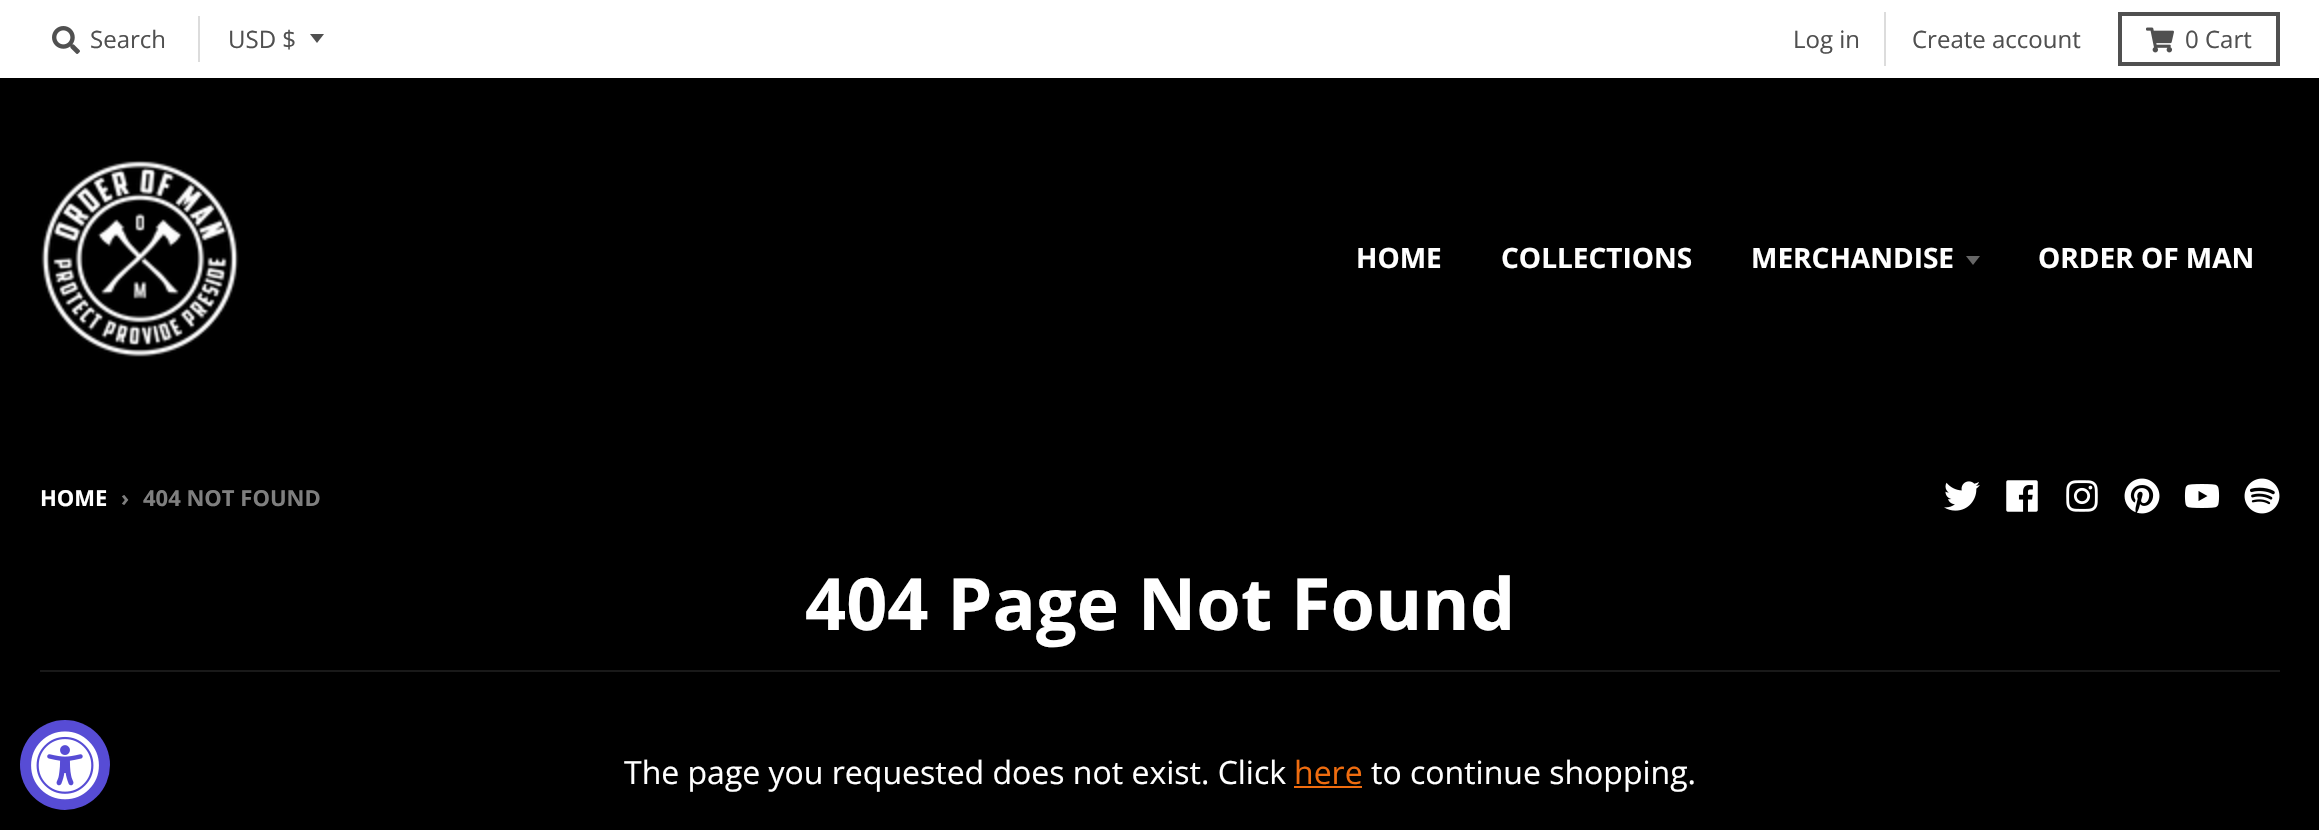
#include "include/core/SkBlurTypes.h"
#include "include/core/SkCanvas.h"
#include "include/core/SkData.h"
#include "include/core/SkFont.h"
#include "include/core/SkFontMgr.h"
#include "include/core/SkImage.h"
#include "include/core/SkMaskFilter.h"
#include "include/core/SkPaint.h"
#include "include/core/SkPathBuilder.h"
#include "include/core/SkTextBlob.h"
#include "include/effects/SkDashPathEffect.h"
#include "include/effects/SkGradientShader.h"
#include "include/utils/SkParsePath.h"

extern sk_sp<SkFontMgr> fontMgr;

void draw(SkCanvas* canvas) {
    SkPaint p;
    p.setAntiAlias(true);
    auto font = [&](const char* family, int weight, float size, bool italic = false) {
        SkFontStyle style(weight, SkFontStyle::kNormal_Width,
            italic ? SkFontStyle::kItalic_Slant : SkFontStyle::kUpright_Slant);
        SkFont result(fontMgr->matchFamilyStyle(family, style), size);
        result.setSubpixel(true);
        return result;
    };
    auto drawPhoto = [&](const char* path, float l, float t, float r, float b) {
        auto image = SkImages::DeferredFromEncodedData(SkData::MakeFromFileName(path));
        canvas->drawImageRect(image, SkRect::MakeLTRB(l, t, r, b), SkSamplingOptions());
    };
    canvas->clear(0xFF000000);
    p.setColor(0xFFFFFFFF);
    canvas->drawRect(SkRect::MakeLTRB(0, 0, 2319, 78), p);
    drawPhoto("media/1.png", 52, 26, 80, 54);
    auto font1 = font("Open Sans", 400, 24);
    p.setColor(0xFF505050);
    canvas->drawString("Search", 90, 48, font1, p);
    p.setColor(0xFFDCDCDC);
    canvas->drawRect(SkRect::MakeLTRB(198, 16, 200, 62), p);
    p.setColor(0xFF505050);
    canvas->drawPath(SkPathBuilder().moveTo(310, 34).lineTo(317, 43).lineTo(324, 34).close().detach(), p);
    canvas->drawString("USD $", 228, 48, font1, p);
    p.setColor(0xFFDCDCDC);
    canvas->drawRect(SkRect::MakeLTRB(1884, 12, 1886, 66), p);
    p.setColor(0xFF505050);
    canvas->drawString("Log in", 1793, 48, font1, p);
    canvas->drawString("Create account", 1912, 48, font1, p);
    p.setStyle(SkPaint::kStroke_Style);
    p.setStrokeWidth(4);
    canvas->drawRect(SkRect::MakeLTRB(2120, 14, 2278, 64), p);
    drawPhoto("media/2.png", 2146, 27, 2174, 53);
    p.setStyle(SkPaint::kFill_Style);
    canvas->drawString("0 Cart", 2185, 48, font1, p);
    drawPhoto("media/3.png", 41, 160, 239, 357);
    auto font2 = font("Open Sans", 700, 28);
    p.setColor(0xFFFFFFFF);
    {
        const struct { const char* s; float x, y; } items[] = {
            {"HOME", 1356, 268},
            {"COLLECTIONS", 1501, 268},
            {"MERCHANDISE", 1751, 268},
        };
        for (auto [s, x, y] : items) {
            canvas->drawString(s, x, y, font2, p);
        }
    }
    p.setColor(0xFF666666);
    canvas->drawPath(SkPathBuilder().moveTo(1966, 256).lineTo(1973, 265).lineTo(1980, 256).close().detach(), p);
    p.setColor(0xFFFFFFFF);
    canvas->drawString("ORDER OF MAN", 2038, 268, font2, p);
    auto font3 = font("Open Sans", 700, 22);
    canvas->drawString("HOME", 40, 506, font3, p);
    p.setColor(0xFF7F7F7F);
    canvas->drawString("›", 121, 506, font3, p);
    canvas->drawString("404 NOT FOUND", 143, 506, font3, p);
    drawPhoto("media/4.png", 1944, 481, 1980, 511);
    drawPhoto("media/5.png", 2006, 480, 2038, 512);
    drawPhoto("media/6.png", 2066, 480, 2098, 512);
    drawPhoto("media/7.png", 2124, 478, 2160, 514);
    drawPhoto("media/8.png", 2184, 484, 2220, 508);
    drawPhoto("media/9.png", 2244, 478, 2280, 514);
    p.setColor(0xFF191919);
    canvas->drawRect(SkRect::MakeLTRB(40, 670, 2280, 672), p);
    auto font4 = font("Open Sans", 700, 72);
    p.setColor(0xFFFFFFFF);
    canvas->drawString("404 Page Not Found", 805, 630, font4, p);
    auto font5 = font("Open Sans", 400, 32);
    canvas->drawString("The page you requested does not exist. Click", 624, 784, font5, p);
    p.setColor(0xFFEF6C0F);
    canvas->drawString("here", 1294, 784, font5, p);
    canvas->drawRect(SkRect::MakeLTRB(1294, 786, 1362, 788), p);
    p.setColor(0xFFFFFFFF);
    canvas->drawString("to continue shopping.", 1371, 784, font5, p);
    p.setColor(0xFF574CD5);
    canvas->drawCircle(65, 765, 45, p);
    drawPhoto("media/10.png", 31, 731, 99, 800);
}
